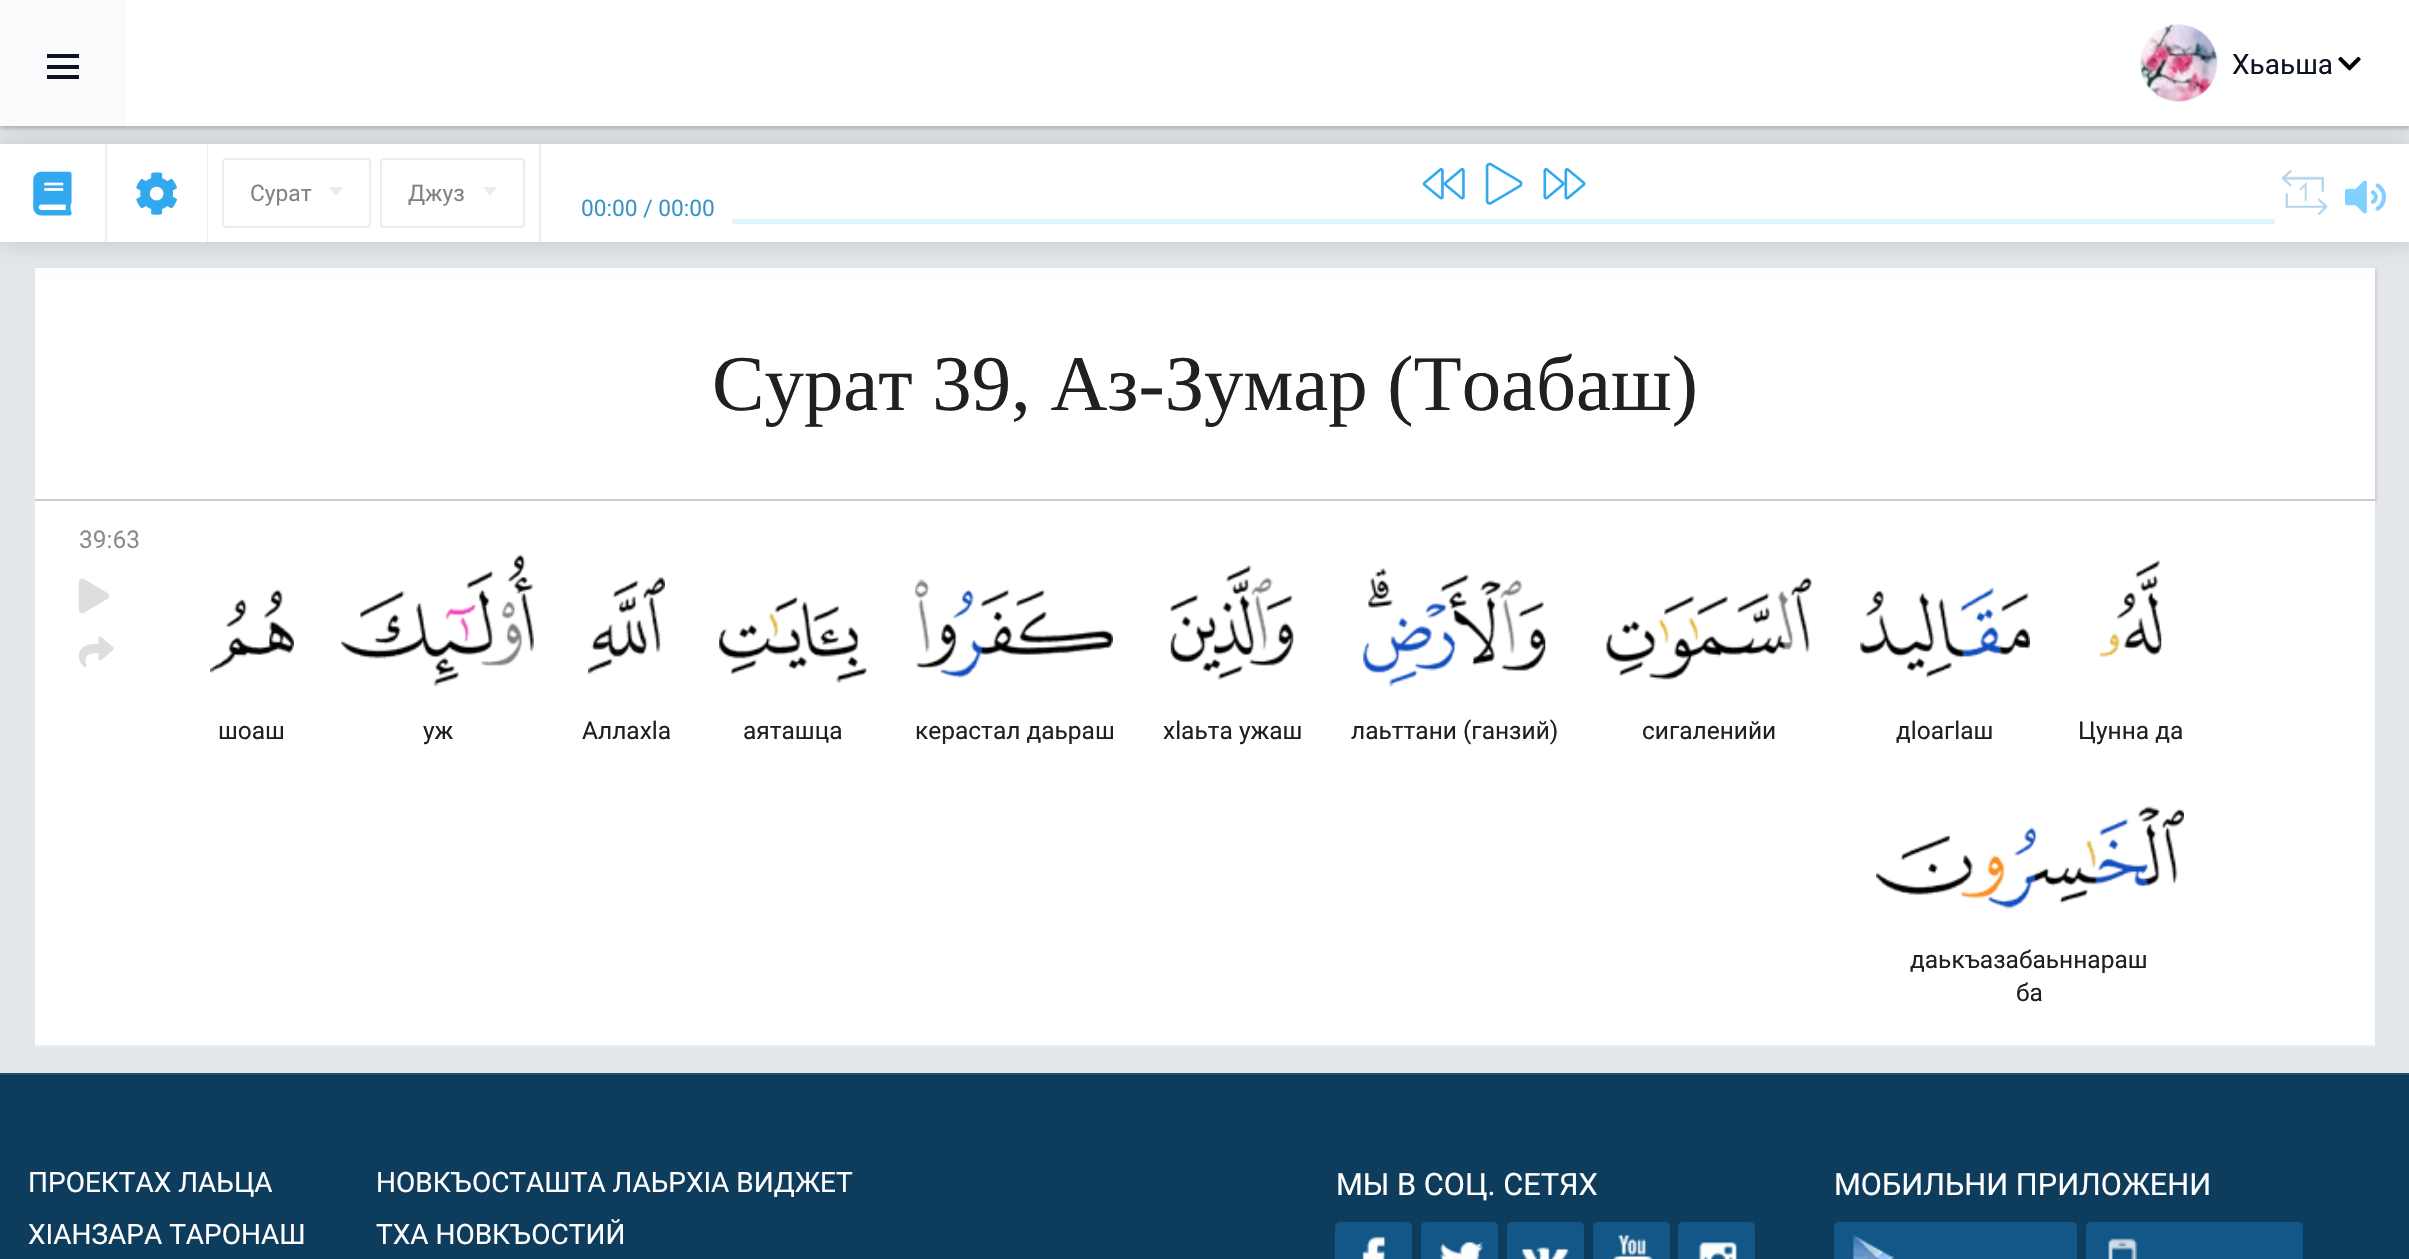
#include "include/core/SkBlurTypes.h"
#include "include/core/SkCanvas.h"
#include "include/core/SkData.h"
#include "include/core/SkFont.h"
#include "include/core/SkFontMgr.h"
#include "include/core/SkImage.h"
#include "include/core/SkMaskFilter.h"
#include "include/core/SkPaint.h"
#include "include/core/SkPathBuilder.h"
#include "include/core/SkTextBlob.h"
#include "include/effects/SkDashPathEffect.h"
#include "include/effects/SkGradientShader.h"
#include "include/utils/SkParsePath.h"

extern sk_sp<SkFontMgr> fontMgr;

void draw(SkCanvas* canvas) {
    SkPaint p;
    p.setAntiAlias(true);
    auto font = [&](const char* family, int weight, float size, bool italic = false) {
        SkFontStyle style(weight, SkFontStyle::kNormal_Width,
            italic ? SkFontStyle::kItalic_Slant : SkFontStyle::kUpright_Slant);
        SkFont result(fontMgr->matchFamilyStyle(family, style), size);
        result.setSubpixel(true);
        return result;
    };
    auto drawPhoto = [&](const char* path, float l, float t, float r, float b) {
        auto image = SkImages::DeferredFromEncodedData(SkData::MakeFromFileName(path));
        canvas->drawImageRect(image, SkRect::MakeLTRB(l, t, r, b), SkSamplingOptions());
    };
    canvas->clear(0xFFE5E8EB);
    p.setColor(0x33000000);
    p.setMaskFilter(SkMaskFilter::MakeBlur(kNormal_SkBlurStyle, 2));
    canvas->drawRect(SkRect::MakeLTRB(0, 2, 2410, 128), p);
    p.setMaskFilter(nullptr);
    p.setColor(0x80AAAAAA);
    p.setMaskFilter(SkMaskFilter::MakeBlur(kNormal_SkBlurStyle, 3.5f));
    canvas->drawRect(SkRect::MakeLTRB(0, 2, 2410, 128), p);
    p.setMaskFilter(nullptr);
    p.setColor(0x1A000000);
    p.setMaskFilter(SkMaskFilter::MakeBlur(kNormal_SkBlurStyle, 1));
    canvas->drawRect(SkRect::MakeLTRB(37, 270, 2377, 502), p);
    p.setMaskFilter(nullptr);
    p.setColor(0xFFFFFFFF);
    canvas->drawRect(SkRect::MakeLTRB(35, 268, 2375, 499), p);
    p.setColor(0x26000000);
    p.setMaskFilter(SkMaskFilter::MakeBlur(kNormal_SkBlurStyle, 13));
    canvas->drawRect(SkRect::MakeLTRB(-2, 142, 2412, 243), p);
    p.setMaskFilter(nullptr);
    {
        const struct { float l, t, r, b; SkColor color; } items[] = {
            {126, 0, 2409, 126, 0xFFFFFFFF},
            {0, 0, 126, 126, 0xFFFAFBFC},
            {47, 54, 79, 58, 0xFF0D1322},
            {47, 65, 79, 69, 0xFF0D1322},
            {47, 75, 79, 79, 0xFF0D1322},
        };
        for (auto [l, t, r, b, color] : items) {
            p.setColor(color);
            canvas->drawRect(SkRect::MakeLTRB(l, t, r, b), p);
        }
    }
    drawPhoto("media/1.png", 2140, 24, 2218, 102);
    auto font1 = font("Roboto", 400, 28);
    canvas->drawString("Хьаьша", 2232, 74, font1, p);
    drawPhoto("media/2.png", 2338, 56, 2361, 71);
    p.setColor(0xFFFFFFFF);
    canvas->drawRect(SkRect::MakeLTRB(0, 144, 2409, 242), p);
    drawPhoto("media/3.png", 33, 171, 72, 216);
    p.setColor(0xFFECECEC);
    canvas->drawRect(SkRect::MakeLTRB(207, 144, 208, 242), p);
    canvas->drawRect(SkRect::MakeLTRB(105, 144, 107, 242), p);
    drawPhoto("media/4.png", 136, 172, 177, 215);
    p.setStyle(SkPaint::kStroke_Style);
    p.setStrokeWidth(2);
    canvas->drawRoundRect(SkRect::MakeLTRB(223, 159, 370, 227), 3, 3, p);
    auto font2 = font("Roboto", 400, 22.75f);
    p.setStyle(SkPaint::kFill_Style);
    p.setColor(0xFF828282);
    canvas->drawString("Сурат", 250, 201, font2, p);
    p.setColor(0xFFECECEC);
    canvas->drawPath(SkPathBuilder().moveTo(329, 187).lineTo(343, 187).lineTo(336, 196).close().detach(), p);
    p.setStyle(SkPaint::kStroke_Style);
    canvas->drawRoundRect(SkRect::MakeLTRB(381, 159, 524, 227), 3, 3, p);
    p.setStyle(SkPaint::kFill_Style);
    p.setColor(0xFF828282);
    canvas->drawString("Джуз", 408, 201, font2, p);
    p.setColor(0xFFECECEC);
    canvas->drawPath(SkPathBuilder().moveTo(483, 187).lineTo(497, 187).lineTo(490, 196).close().detach(), p);
    canvas->drawRect(SkRect::MakeLTRB(539, 144, 541, 242), p);
    p.setColor(0xFF3993C9);
    canvas->drawString("00:00 / 00:00", 581, 216, font2, p);
    drawPhoto("media/5.png", 1422, 168, 1465, 200);
    drawPhoto("media/6.png", 1485, 162, 1523, 205);
    drawPhoto("media/7.png", 1543, 168, 1586, 200);
    p.setColor(0xFFE0F5FF);
    canvas->drawRect(SkRect::MakeLTRB(732, 219, 2275, 224), p);
    drawPhoto("media/8.png", 2282, 169, 2328, 215);
    drawPhoto("media/9.png", 2345, 180, 2386, 214);
    p.setColor(0xFFCCCCCC);
    canvas->drawRect(SkRect::MakeLTRB(35, 499, 2375, 501), p);
    auto font3 = font("Liberation Serif", 400, 78.75f);
    p.setColor(0xFF202020);
    canvas->drawString("Сурат 39, Аз-Зумар (Тоабаш)", 712, 410, font3, p);
    p.setColor(0xFFFFFFFF);
    canvas->drawRect(SkRect::MakeLTRB(35, 501, 2375, 1045), p);
    p.setColor(0xFFEEEEEE);
    canvas->drawRect(SkRect::MakeLTRB(35, 1045, 2375, 1047), p);
    auto font4 = font("Roboto", 400, 24.5f);
    p.setColor(0xFF8C8C8C);
    canvas->drawString("39:63", 79, 548, font4, p);
    drawPhoto("media/10.png", 78, 578, 110, 614);
    drawPhoto("media/11.png", 78, 636, 114, 667);
    drawPhoto("media/12.png", 210, 589, 294, 673);
    p.setColor(0xFF202020);
    canvas->drawString("шоаш", 218, 739, font4, p);
    drawPhoto("media/13.png", 341, 554, 534, 687);
    canvas->drawString("уж", 423, 739, font4, p);
    drawPhoto("media/14.png", 588, 577, 665, 675);
    canvas->drawString("Аллахlа", 582, 739, font4, p);
    drawPhoto("media/15.png", 719, 596, 867, 683);
    canvas->drawString("аяташца", 743, 739, font4, p);
    drawPhoto("media/16.png", 915, 579, 1113, 678);
    canvas->drawString("керастал даьраш", 915, 739, font4, p);
    drawPhoto("media/17.png", 1170, 565, 1294, 680);
    canvas->drawString("хlаьта ужаш", 1163, 739, font4, p);
    drawPhoto("media/18.png", 1363, 568, 1546, 687);
    canvas->drawString("лаьттани (ганзий)", 1351, 739, font4, p);
    drawPhoto("media/19.png", 1606, 577, 1812, 680);
    canvas->drawString("сигаленийи", 1642, 739, font4, p);
    drawPhoto("media/20.png", 1860, 587, 2030, 678);
    canvas->drawString("дlоагlаш", 1896, 739, font4, p);
    drawPhoto("media/21.png", 2100, 559, 2162, 657);
    canvas->drawString("Цунна да", 2078, 739, font4, p);
    drawPhoto("media/22.png", 1876, 806, 2184, 909);
    canvas->drawString("даькъазабаьннараш", 1910, 968, font4, p);
    canvas->drawString("ба", 2016, 1001, font4, p);
    p.setColor(0xFF0E3C5C);
    canvas->drawRect(SkRect::MakeLTRB(0, 1075, 2409, 1259), p);
    p.setColor(0xFF27506D);
    canvas->drawRect(SkRect::MakeLTRB(0, 1073, 2409, 1075), p);
    p.setColor(0xFFFFFFFF);
    {
        const struct { const char* s; float x, y; } items[] = {
            {"ПРОЕКТАХ ЛАЬЦА", 28, 1192},
            {"ХIАНЗАРА ТАРОНАШ", 28, 1244},
            {"НОВКЪОСТАШТА ЛАЬРХIА ВИДЖЕТ", 376, 1192},
            {"ТХА НОВКЪОСТИЙ", 376, 1244},
        };
        for (auto [s, x, y] : items) {
            canvas->drawString(s, x, y, font1, p);
        }
    }
    auto font5 = font("Roboto", 400, 30.75f);
    canvas->drawString("МЫ В СОЦ. СЕТЯХ", 1336, 1195, font5, p);
    p.setColor(0xFF125788);
    canvas->drawRoundRect(SkRect::MakeLTRB(1335, 1222, 1412, 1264), 5, 5, p);
    drawPhoto("media/23.png", 1361, 1236, 1386, 1259);
    canvas->drawRoundRect(SkRect::MakeLTRB(1421, 1222, 1498, 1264), 5, 5, p);
    drawPhoto("media/24.png", 1440, 1241, 1484, 1259);
    canvas->drawRoundRect(SkRect::MakeLTRB(1507, 1222, 1584, 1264), 5, 5, p);
    drawPhoto("media/25.png", 1522, 1247, 1569, 1259);
    canvas->drawRoundRect(SkRect::MakeLTRB(1593, 1222, 1670, 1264), 5, 5, p);
    drawPhoto("media/26.png", 1613, 1234, 1653, 1259);
    canvas->drawRoundRect(SkRect::MakeLTRB(1678, 1222, 1755, 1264), 5, 5, p);
    drawPhoto("media/27.png", 1698, 1242, 1738, 1259);
    p.setColor(0xFFFFFFFF);
    canvas->drawString("МОБИЛЬНИ ПРИЛОЖЕНИ", 1834, 1195, font5, p);
    p.setColor(0xFF125788);
    canvas->drawRoundRect(SkRect::MakeLTRB(1834, 1222, 2077, 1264), 5, 5, p);
    drawPhoto("media/28.png", 1852, 1235, 1894, 1259);
    canvas->drawRoundRect(SkRect::MakeLTRB(2086, 1222, 2303, 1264), 5, 5, p);
    drawPhoto("media/29.png", 2108, 1238, 2138, 1259);
}
